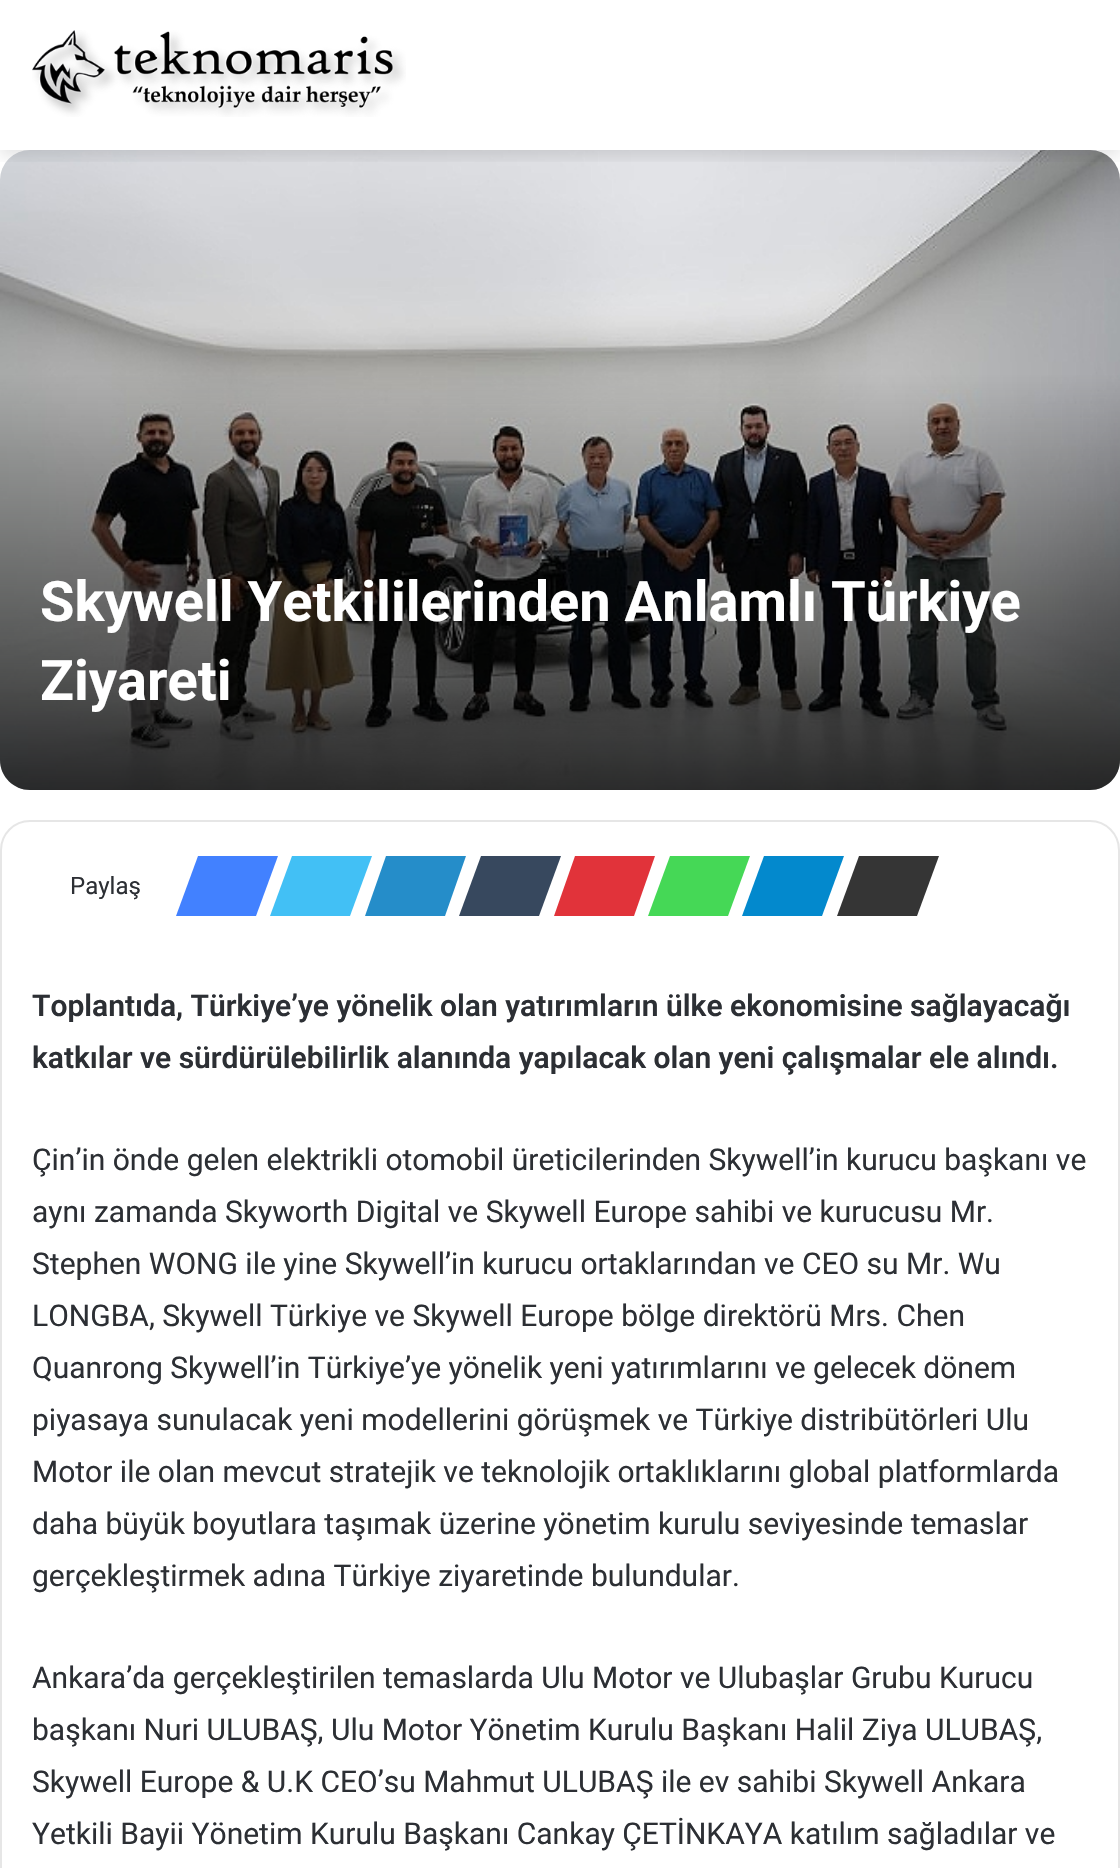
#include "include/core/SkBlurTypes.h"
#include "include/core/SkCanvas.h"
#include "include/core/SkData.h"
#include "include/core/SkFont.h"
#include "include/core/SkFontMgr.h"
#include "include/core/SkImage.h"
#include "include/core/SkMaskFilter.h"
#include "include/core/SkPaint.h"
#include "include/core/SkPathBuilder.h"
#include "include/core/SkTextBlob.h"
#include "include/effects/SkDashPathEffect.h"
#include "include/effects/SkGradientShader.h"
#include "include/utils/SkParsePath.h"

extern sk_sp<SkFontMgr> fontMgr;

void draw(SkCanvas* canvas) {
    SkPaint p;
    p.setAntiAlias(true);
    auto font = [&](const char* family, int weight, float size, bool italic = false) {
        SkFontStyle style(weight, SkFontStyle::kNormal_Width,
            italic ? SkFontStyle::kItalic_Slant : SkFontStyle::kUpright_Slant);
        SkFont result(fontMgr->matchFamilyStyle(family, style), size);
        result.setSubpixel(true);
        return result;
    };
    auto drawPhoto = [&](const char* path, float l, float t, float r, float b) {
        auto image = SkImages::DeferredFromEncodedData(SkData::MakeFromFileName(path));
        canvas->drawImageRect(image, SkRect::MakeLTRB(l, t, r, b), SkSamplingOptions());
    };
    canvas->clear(0xFFFFFFFF);
    drawPhoto("media/2.png", 0, 150, 1120, 790);
    canvas->save();
    canvas->clipRect(SkRect::MakeLTRB(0, 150, 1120, 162));
    p.setColor(0x1A000000);
    p.setMaskFilter(SkMaskFilter::MakeBlur(kNormal_SkBlurStyle, 7));
    canvas->drawRect(SkRect::MakeLTRB(0, 6, 1120, 156), p);
    p.setMaskFilter(nullptr);
    canvas->restore();
    drawPhoto("media/1.png", 32, 30, 406, 117);
    {
        const SkColor colors[] = {0x00000000, 0xBF000000};
        const float stops[] = {0, 1};
        const SkPoint ends[] = {{560, 374}, {560, 790}};
        p.setShader(SkGradientShader::MakeLinear(ends, colors, stops, 2, SkTileMode::kClamp));
        p.setAlpha(255);
    }
    canvas->drawPath(SkPathBuilder().moveTo(0, 374).lineTo(1120, 374).lineTo(1120, 760).cubicTo(1120, 776.5f, 1106.5f, 790, 1090, 790).lineTo(30, 790).cubicTo(13.5f, 790, 0, 776.5f, 0, 760).close().detach(), p);
    auto font1 = font("Roboto", 700, 56);
    p.setShader(nullptr);
    p.setColor(0xFFFFFFFF);
    canvas->drawString("Skywell Yetkililerinden Anlamlı Türkiye", 40, 621, font1, p);
    canvas->drawString("Ziyareti", 40, 700, font1, p);
    p.setStyle(SkPaint::kStroke_Style);
    p.setStrokeWidth(2);
    p.setColor(0xFFE6E6E6);
    canvas->drawRoundRect(SkRect::MakeLTRB(1, 821, 1119, 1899), 29, 29, p);
    auto font2 = font("Roboto", 400, 24);
    p.setStyle(SkPaint::kFill_Style);
    p.setColor(0xFF2C2F34);
    canvas->drawString("Paylaş", 70, 894, font2, p);
    p.setColor(0xFF4281FF);
    canvas->drawPath(SkPathBuilder().moveTo(198, 856).lineTo(278, 856).lineTo(256, 916).lineTo(176, 916).close().detach(), p);
    p.setColor(0xFF42C0F5);
    canvas->drawPath(SkPathBuilder().moveTo(292, 856).lineTo(372, 856).lineTo(350, 916).lineTo(270, 916).close().detach(), p);
    p.setColor(0xFF258DC9);
    canvas->drawPath(SkPathBuilder().moveTo(386, 856).lineTo(466, 856).lineTo(445, 916).lineTo(365, 916).close().detach(), p);
    p.setColor(0xFF37485E);
    canvas->drawPath(SkPathBuilder().moveTo(481, 856).lineTo(561, 856).lineTo(539, 916).lineTo(459, 916).close().detach(), p);
    p.setColor(0xFFE1333A);
    canvas->drawPath(SkPathBuilder().moveTo(575, 856).lineTo(655, 856).lineTo(634, 916).lineTo(554, 916).close().detach(), p);
    p.setColor(0xFF45D856);
    canvas->drawPath(SkPathBuilder().moveTo(670, 856).lineTo(750, 856).lineTo(728, 916).lineTo(648, 916).close().detach(), p);
    p.setColor(0xFF0389CD);
    canvas->drawPath(SkPathBuilder().moveTo(764, 856).lineTo(844, 856).lineTo(822, 916).lineTo(742, 916).close().detach(), p);
    p.setColor(0xFF353535);
    canvas->drawPath(SkPathBuilder().moveTo(859, 856).lineTo(939, 856).lineTo(917, 916).lineTo(837, 916).close().detach(), p);
    auto font3 = font("Roboto", 600, 30);
    p.setColor(0xFF2C2F34);
    canvas->drawString("Toplantıda, Türkiye’ye yönelik olan yatırımların ülke ekonomisine sağlayacağı", 32, 1016, font3, p);
    canvas->drawString("katkılar ve sürdürülebilirlik alanında yapılacak olan yeni çalışmalar ele alındı.", 32, 1068, font3, p);
    auto font4 = font("Roboto", 400, 30);
    {
        const struct { const char* s; float x, y; } items[] = {
            {"Çin’in önde gelen elektrikli otomobil üreticilerinden Skywell’in kurucu başkanı ve", 32, 1170},
            {"aynı zamanda Skyworth Digital ve Skywell Europe sahibi ve kurucusu Mr.", 32, 1222},
            {"Stephen WONG ile yine Skywell’in kurucu ortaklarından ve CEO su Mr. Wu", 32, 1274},
            {"LONGBA, Skywell Türkiye ve Skywell Europe bölge direktörü Mrs. Chen", 32, 1326},
            {"Quanrong Skywell’in Türkiye’ye yönelik yeni yatırımlarını ve gelecek dönem", 32, 1378},
            {"piyasaya sunulacak yeni modellerini görüşmek ve Türkiye distribütörleri Ulu", 32, 1430},
            {"Motor ile olan mevcut stratejik ve teknolojik ortaklıklarını global platformlarda", 32, 1482},
            {"daha büyük boyutlara taşımak üzerine yönetim kurulu seviyesinde temaslar", 32, 1534},
            {"gerçekleştirmek adına Türkiye ziyaretinde bulundular.", 32, 1586},
            {"Ankara’da gerçekleştirilen temaslarda Ulu Motor ve Ulubaşlar Grubu Kurucu", 32, 1688},
            {"başkanı Nuri ULUBAŞ, Ulu Motor Yönetim Kurulu Başkanı Halil Ziya ULUBAŞ,", 32, 1740},
            {"Skywell Europe & U.K CEO’su Mahmut ULUBAŞ ile ev sahibi Skywell Ankara", 32, 1792},
            {"Yetkili Bayii Yönetim Kurulu Başkanı Cankay ÇETİNKAYA katılım sağladılar ve", 32, 1844},
        };
        for (auto [s, x, y] : items) {
            canvas->drawString(s, x, y, font4, p);
        }
    }
}
